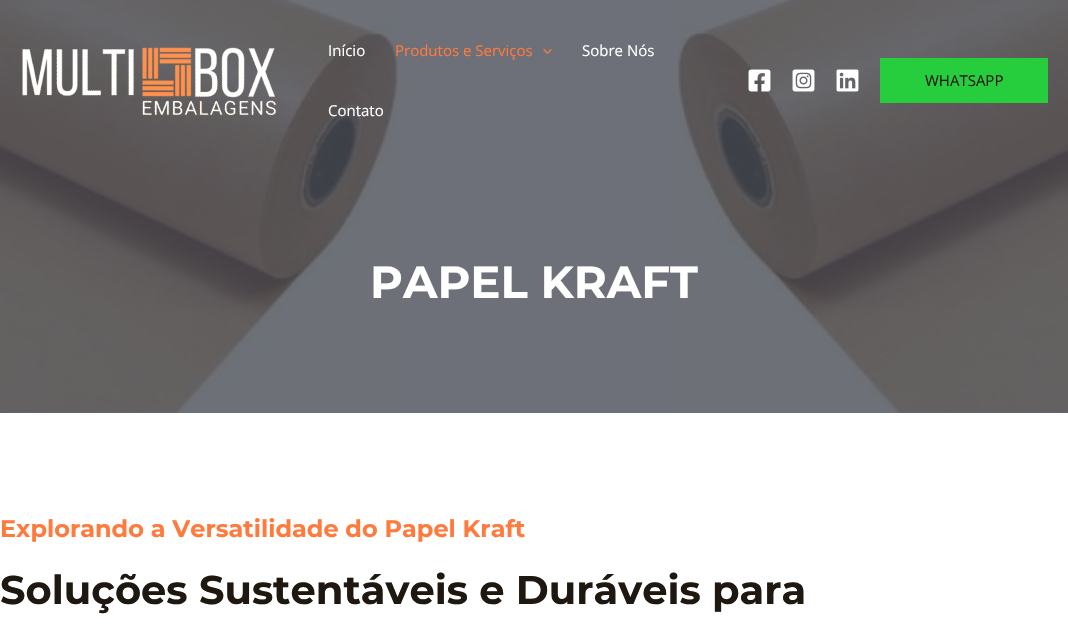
#include "include/core/SkBlurTypes.h"
#include "include/core/SkCanvas.h"
#include "include/core/SkData.h"
#include "include/core/SkFont.h"
#include "include/core/SkFontMgr.h"
#include "include/core/SkImage.h"
#include "include/core/SkMaskFilter.h"
#include "include/core/SkPaint.h"
#include "include/core/SkPathBuilder.h"
#include "include/core/SkTextBlob.h"
#include "include/effects/SkDashPathEffect.h"
#include "include/effects/SkGradientShader.h"
#include "include/utils/SkParsePath.h"

extern sk_sp<SkFontMgr> fontMgr;

void draw(SkCanvas* canvas) {
    SkPaint p;
    p.setAntiAlias(true);
    auto font = [&](const char* family, int weight, float size, bool italic = false) {
        SkFontStyle style(weight, SkFontStyle::kNormal_Width,
            italic ? SkFontStyle::kItalic_Slant : SkFontStyle::kUpright_Slant);
        SkFont result(fontMgr->matchFamilyStyle(family, style), size);
        result.setSubpixel(true);
        return result;
    };
    auto drawPhoto = [&](const char* path, float l, float t, float r, float b) {
        auto image = SkImages::DeferredFromEncodedData(SkData::MakeFromFileName(path));
        canvas->drawImageRect(image, SkRect::MakeLTRB(l, t, r, b), SkSamplingOptions());
    };
    canvas->clear(0xFFFFFFFF);
    drawPhoto("media/6.png", 0, 0, 1068, 413);
    drawPhoto("media/1.png", 22, 47, 277, 118);
    auto font1 = font("Open Sans", 400, 15);
    p.setColor(0xFFFFFFFF);
    canvas->drawString("Início", 328, 56, font1, p);
    p.setColor(0xFFFF7A3D);
    canvas->drawString("Produtos e Serviços", 395, 56, font1, p);
    drawPhoto("media/2.png", 543, 49, 552, 54);
    p.setColor(0xFFFFFFFF);
    canvas->drawString("Sobre Nós", 582, 56, font1, p);
    canvas->drawString("Contato", 328, 116, font1, p);
    drawPhoto("media/3.png", 748, 69, 771, 92);
    drawPhoto("media/4.png", 792, 69, 815, 92);
    drawPhoto("media/5.png", 836, 69, 859, 92);
    p.setColor(0xFF26CD3C);
    canvas->drawRect(SkRect::MakeLTRB(880, 58, 1048, 103), p);
    p.setColor(0xFF1E1810);
    canvas->drawString("WHATSAPP", 925, 86, font1, p);
    auto font2 = font("Montserrat", 100, 45);
    p.setColor(0xFFFFFFFF);
    canvas->drawString("PAPEL KRAFT", 370, 298, font2, p);
    auto font3 = font("Montserrat", 100, 24);
    p.setColor(0xFFFF7A3D);
    canvas->drawString("Explorando a Versatilidade do Papel Kraft", 0, 537, font3, p);
    auto font4 = font("Montserrat", 100, 40);
    p.setColor(0xFF1E1810);
    canvas->drawString("Soluções Sustentáveis e Duráveis para", 0, 604, font4, p);
}
